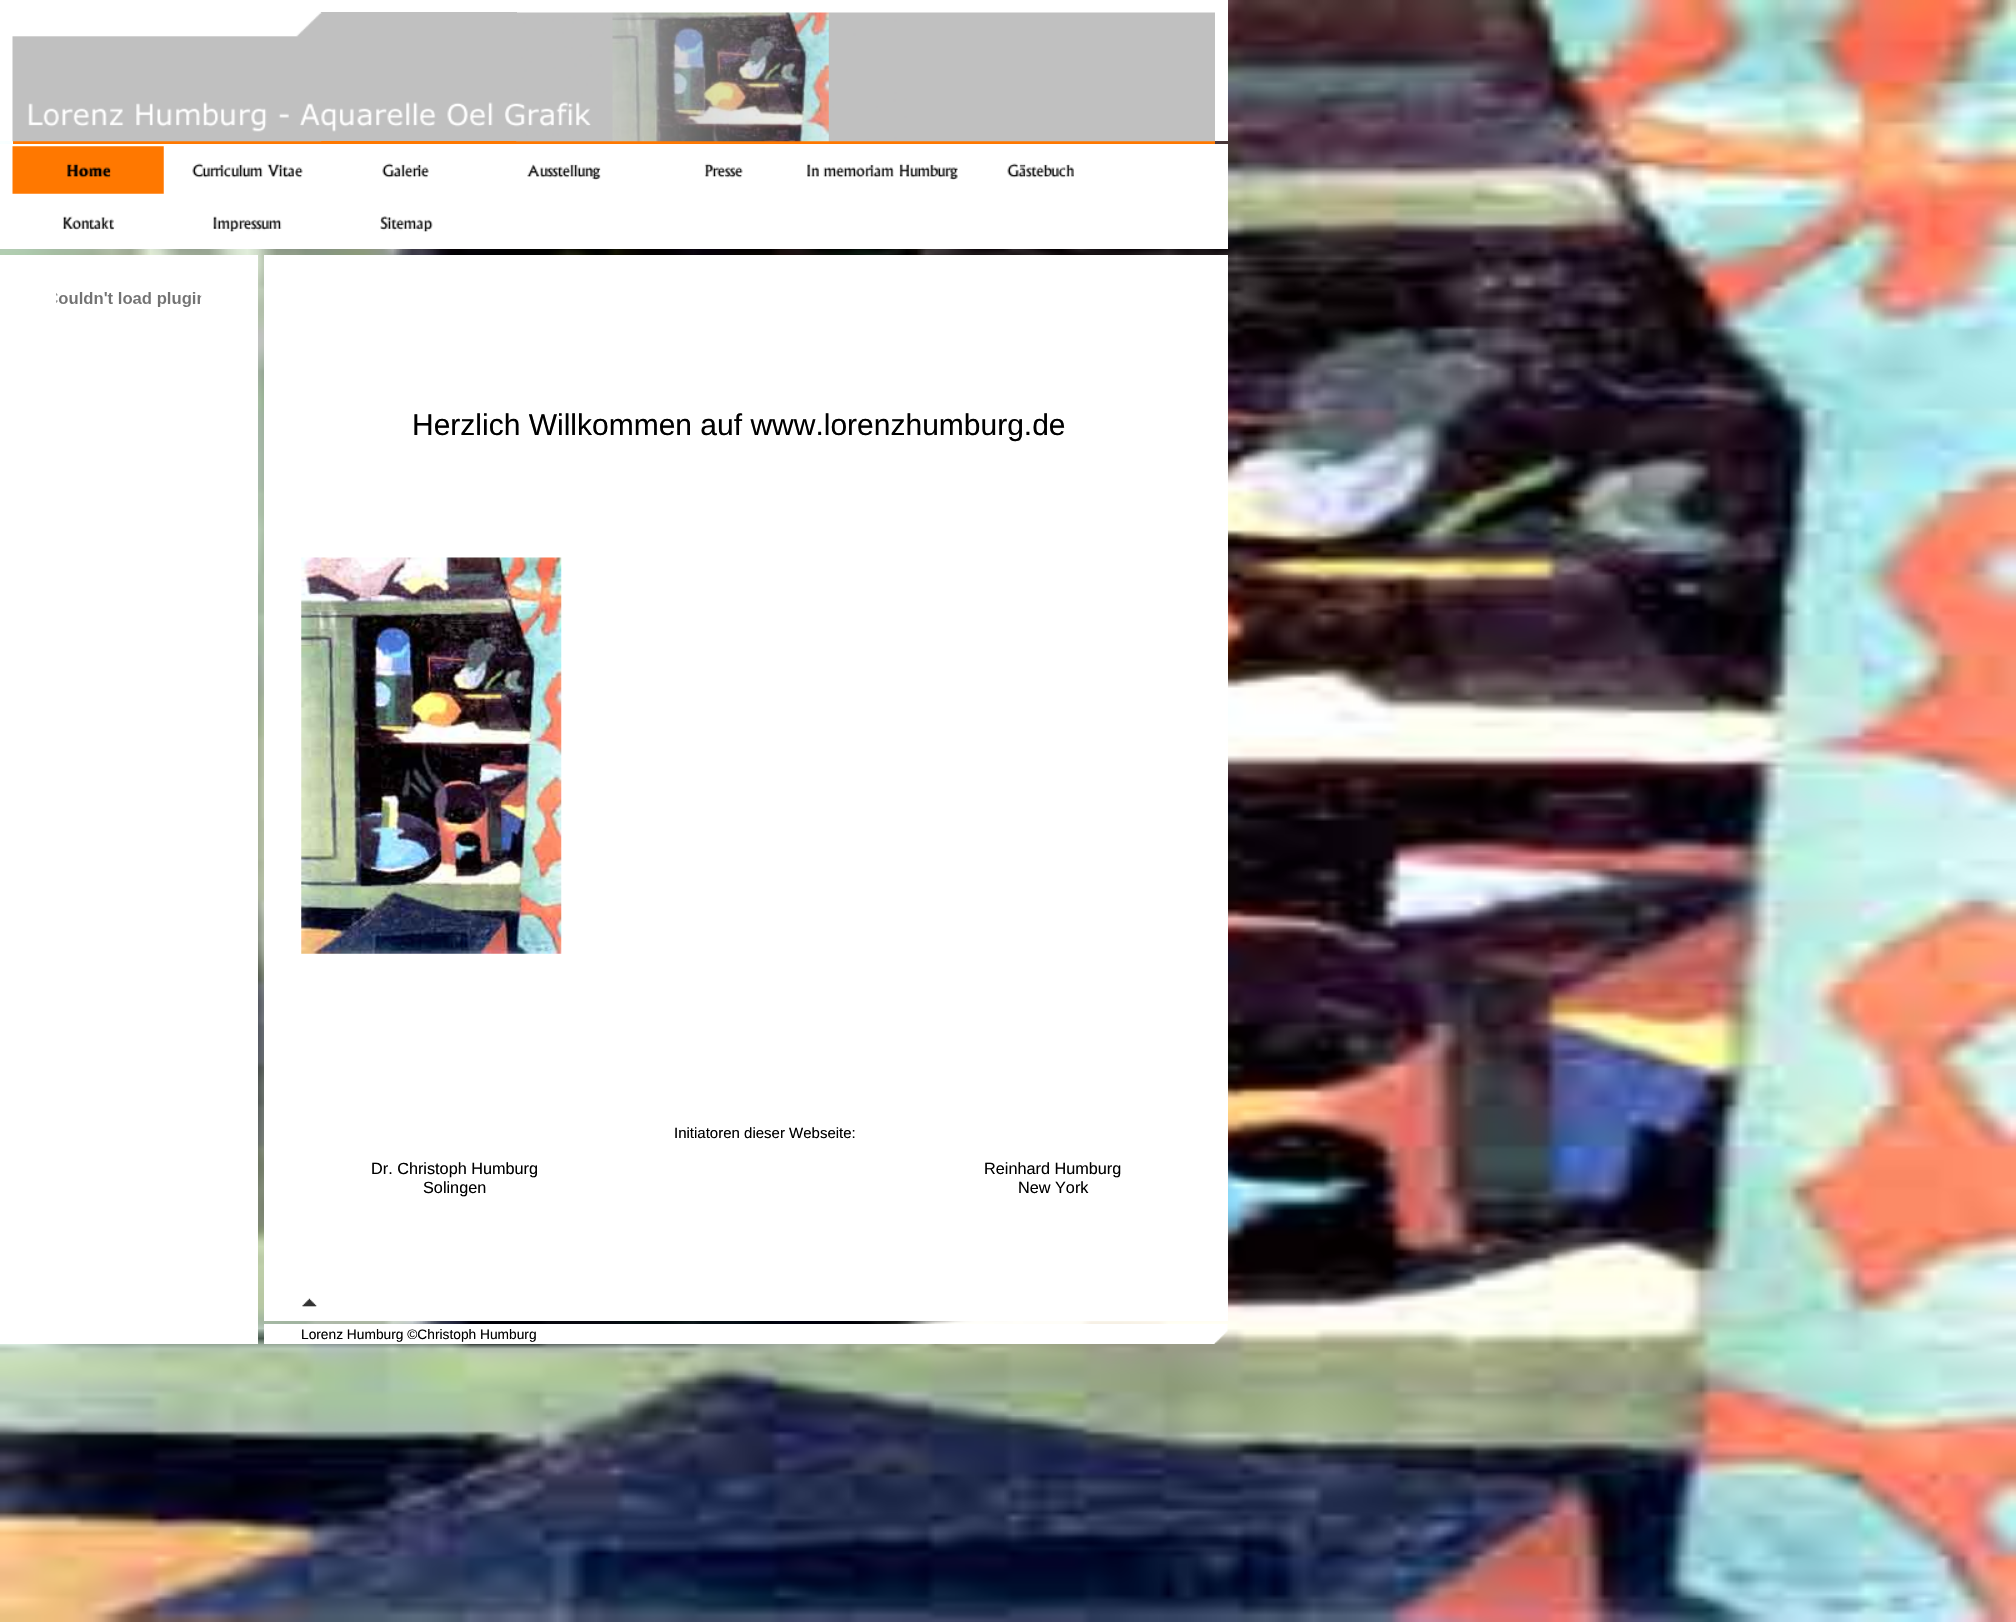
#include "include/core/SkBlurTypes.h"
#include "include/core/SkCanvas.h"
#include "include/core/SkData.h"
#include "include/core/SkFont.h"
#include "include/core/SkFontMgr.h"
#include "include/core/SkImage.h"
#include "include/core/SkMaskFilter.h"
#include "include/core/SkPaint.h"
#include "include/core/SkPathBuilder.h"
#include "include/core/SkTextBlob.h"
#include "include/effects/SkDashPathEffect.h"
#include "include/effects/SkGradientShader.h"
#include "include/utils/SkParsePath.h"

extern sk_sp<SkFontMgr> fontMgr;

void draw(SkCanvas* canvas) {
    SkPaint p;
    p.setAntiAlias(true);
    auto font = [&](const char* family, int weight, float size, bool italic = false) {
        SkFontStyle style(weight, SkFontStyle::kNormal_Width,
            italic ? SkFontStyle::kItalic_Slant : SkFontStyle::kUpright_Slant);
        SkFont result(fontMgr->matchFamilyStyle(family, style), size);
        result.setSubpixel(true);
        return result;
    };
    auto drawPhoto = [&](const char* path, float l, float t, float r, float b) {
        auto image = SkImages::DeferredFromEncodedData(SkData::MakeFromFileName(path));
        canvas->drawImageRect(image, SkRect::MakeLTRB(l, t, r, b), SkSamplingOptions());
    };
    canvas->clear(0xFFFFFFFF);
    drawPhoto("media/1.png", 0, 0, 2016, 1622);
    {
        const struct { float l, t, r, b; SkColor color; } items[] = {
            {0, 0, 1228, 141, 0xFFFFFFFF},
            {321, 12, 517, 141, 0xFFC0C0C0},
            {13, 141, 1215, 144, 0xFFFF7800},
        };
        for (auto [l, t, r, b, color] : items) {
            p.setColor(color);
            canvas->drawRect(SkRect::MakeLTRB(l, t, r, b), p);
        }
    }
    drawPhoto("media/2.png", 12, 12, 322, 142);
    drawPhoto("media/3.png", 516, 12, 1215, 142);
    drawPhoto("media/4.png", 28, 102, 591, 132);
    p.setColor(0xFFFFFFFF);
    canvas->drawRect(SkRect::MakeLTRB(0, 144, 1228, 249), p);
    drawPhoto("media/5.png", 12, 146, 164, 194);
    drawPhoto("media/6.png", 192, 163, 303, 178);
    drawPhoto("media/7.png", 382, 163, 429, 178);
    drawPhoto("media/8.png", 527, 164, 601, 180);
    drawPhoto("media/9.png", 704, 163, 743, 178);
    drawPhoto("media/10.png", 807, 163, 958, 180);
    drawPhoto("media/11.png", 1007, 163, 1074, 178);
    drawPhoto("media/12.png", 62, 216, 115, 230);
    drawPhoto("media/13.png", 213, 216, 282, 232);
    drawPhoto("media/14.png", 380, 216, 433, 232);
    canvas->drawRect(SkRect::MakeLTRB(0, 255, 258, 1344), p);
    drawPhoto("media/15.png", 56, 292, 202, 307);
    canvas->drawRect(SkRect::MakeLTRB(264, 255, 1228, 1321), p);
    auto font1 = font("Liberation Sans", 400, 30);
    p.setColor(0xFF000000);
    canvas->drawString("Herzlich Willkommen auf www.lorenzhumburg.de", 412, 435, font1, p);
    drawPhoto("media/16.png", 301, 557, 562, 954);
    auto font2 = font("Liberation Sans", 400, 15);
    canvas->drawString("Initiatoren dieser Webseite:", 674, 1138, font2, p);
    auto font3 = font("Liberation Sans", 400, 16.25f);
    {
        const struct { const char* s; float x, y; } items[] = {
            {"Dr. Christoph Humburg", 371, 1174},
            {"Reinhard Humburg", 984, 1174},
            {"Solingen", 423, 1193},
            {"New York", 1018, 1193},
        };
        for (auto [s, x, y] : items) {
            canvas->drawString(s, x, y, font3, p);
        }
    }
    drawPhoto("media/17.png", 302, 1298, 317, 1307);
    p.setColor(0xFFFFFFFF);
    canvas->drawRect(SkRect::MakeLTRB(264, 1324, 1214, 1344), p);
    auto font4 = font("Liberation Sans", 400, 13.75f);
    p.setColor(0xFF000000);
    canvas->drawString("Lorenz Humburg ©Christoph Humburg", 301, 1339, font4, p);
    drawPhoto("media/18.png", 1214, 1324, 1228, 1344);
}
